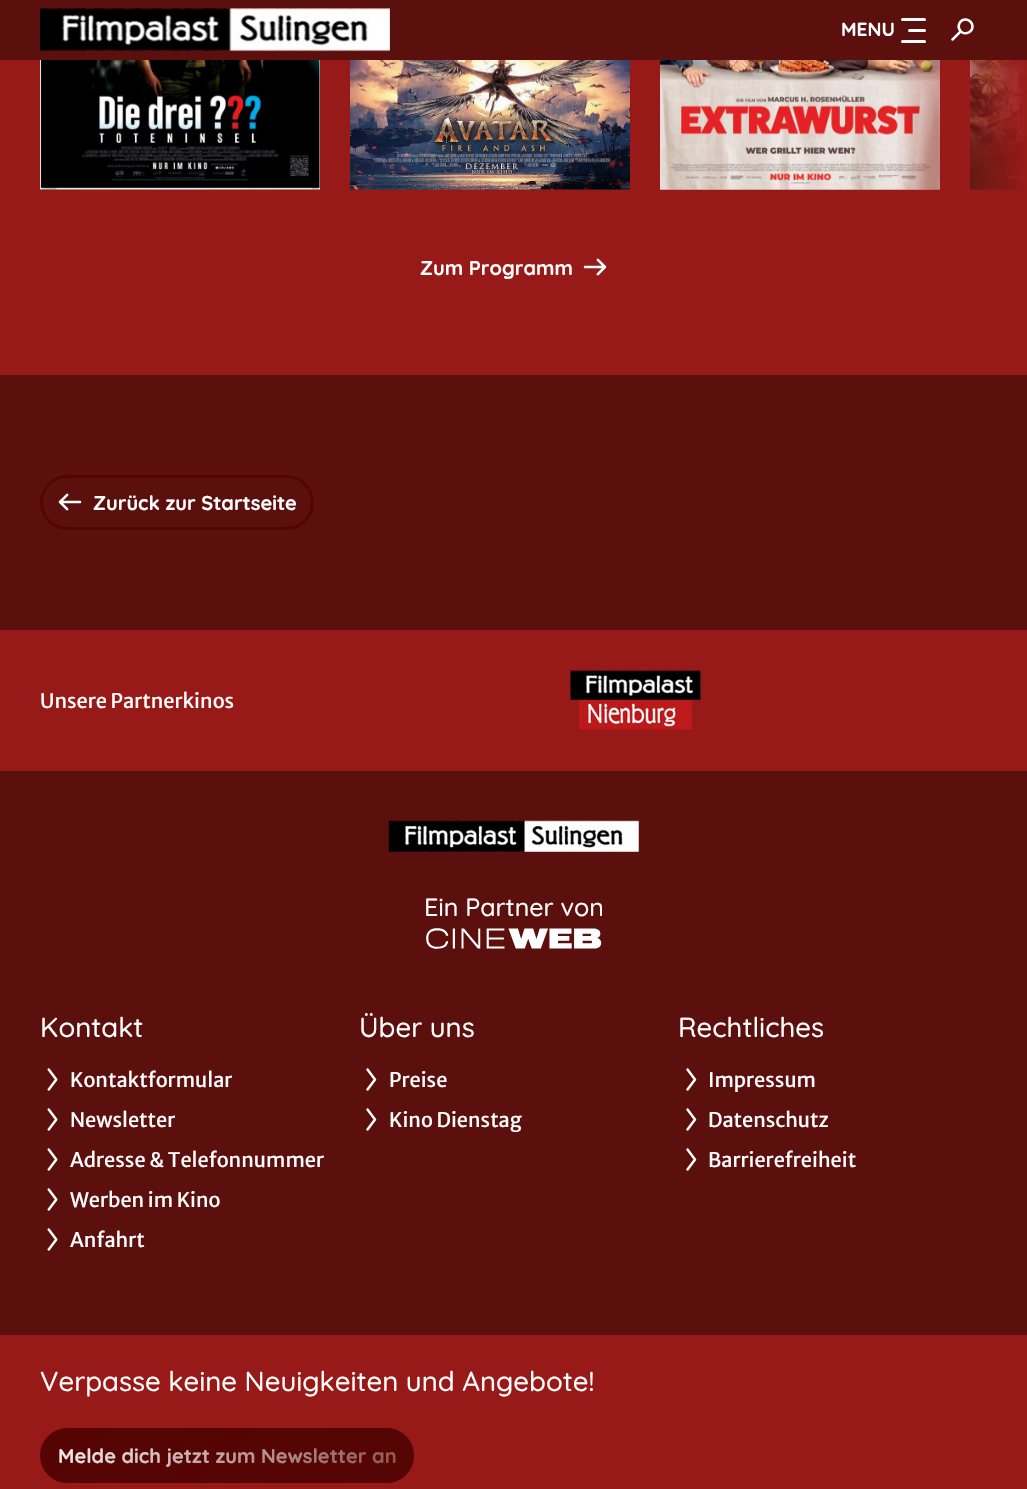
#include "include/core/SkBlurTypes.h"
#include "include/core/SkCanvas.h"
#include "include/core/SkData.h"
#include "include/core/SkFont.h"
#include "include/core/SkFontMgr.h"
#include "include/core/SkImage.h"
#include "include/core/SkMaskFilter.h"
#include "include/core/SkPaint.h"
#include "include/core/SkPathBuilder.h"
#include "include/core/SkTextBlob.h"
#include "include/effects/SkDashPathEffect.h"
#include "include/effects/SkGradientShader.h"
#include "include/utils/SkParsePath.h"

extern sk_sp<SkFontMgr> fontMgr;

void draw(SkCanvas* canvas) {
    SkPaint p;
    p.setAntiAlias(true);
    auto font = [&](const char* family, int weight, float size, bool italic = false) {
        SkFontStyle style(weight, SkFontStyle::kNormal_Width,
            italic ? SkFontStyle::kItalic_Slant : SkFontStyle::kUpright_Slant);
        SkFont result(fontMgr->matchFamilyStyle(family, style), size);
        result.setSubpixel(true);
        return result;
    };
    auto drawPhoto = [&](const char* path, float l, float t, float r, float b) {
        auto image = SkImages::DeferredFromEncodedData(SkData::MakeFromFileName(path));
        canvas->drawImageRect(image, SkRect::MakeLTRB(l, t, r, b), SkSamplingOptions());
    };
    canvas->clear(0xFF5B100E);
    drawPhoto("media/1.png", 40, 8, 390, 52);
    auto font1 = font("Quicksand", 300, 19);
    p.setColor(0xFFFFFFFF);
    canvas->drawString("MENU", 841, 36, font1, p);
    canvas->drawRoundRect(SkRect::MakeLTRB(901, 18, 926, 21), 1.5f, 1.5f, p);
    canvas->drawRoundRect(SkRect::MakeLTRB(908, 29, 926, 32), 1.5f, 1.5f, p);
    canvas->drawRoundRect(SkRect::MakeLTRB(901, 40, 926, 43), 1.5f, 1.5f, p);
    drawPhoto("media/2.png", 951, 18, 974, 41);
    p.setColor(0xFF981A18);
    canvas->drawRect(SkRect::MakeLTRB(0, 60, 1027, 375), p);
    drawPhoto("media/4.png", 40, 189, 320, 190);
    drawPhoto("media/3.png", 40, 60, 320, 190);
    drawPhoto("media/6.png", 350, 189, 630, 190);
    drawPhoto("media/5.png", 350, 60, 630, 190);
    drawPhoto("media/8.png", 660, 189, 940, 190);
    drawPhoto("media/7.png", 660, 60, 940, 190);
    drawPhoto("media/10.png", 970, 189, 1027, 190);
    drawPhoto("media/9.png", 970, 60, 1027, 190);
    {
        const SkColor colors[] = {0xFF981A18, 0x00981A18};
        const float stops[] = {0, 1};
        const SkPoint ends[] = {{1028, -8}, {894, -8}};
        p.setShader(SkGradientShader::MakeLinear(ends, colors, stops, 2, SkTileMode::kClamp));
        p.setAlpha(255);
    }
    canvas->drawRect(SkRect::MakeLTRB(897, 60, 1027, 190), p);
    auto font2 = font("Quicksand", 300, 20);
    p.setShader(nullptr);
    p.setColor(0xFFFFFFFF);
    canvas->drawString("Zum Programm", 420, 275, font2, p);
    drawPhoto("media/11.png", 583, 258, 607, 276);
    p.setStyle(SkPaint::kStroke_Style);
    p.setStrokeWidth(3);
    p.setColor(0xFF550403);
    canvas->drawRoundRect(SkRect::MakeLTRB(41.5f, 476.5f, 312.5f, 528.5f), 26, 26, p);
    drawPhoto("media/12.png", 58, 493, 82, 511);
    p.setStyle(SkPaint::kFill_Style);
    p.setColor(0xFFFFFFFF);
    canvas->drawString("Zurück zur Startseite", 93, 510, font2, p);
    p.setColor(0xFF981A18);
    canvas->drawRect(SkRect::MakeLTRB(0, 630, 1027, 771), p);
    auto font3 = font("Merriweather Sans", 400, 20);
    p.setColor(0xFFFFFFFF);
    canvas->drawString("Unsere Partnerkinos", 40, 708, font3, p);
    drawPhoto("media/13.png", 570, 670, 701, 730);
    drawPhoto("media/14.png", 388, 820, 639, 852);
    auto font4 = font("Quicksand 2", 300, 25);
    canvas->drawString("Ein Partner von", 424, 916, font4, p);
    drawPhoto("media/15.png", 426, 928, 602, 949);
    auto font5 = font("Quicksand 2", 300, 27.5f);
    canvas->drawString("Kontakt", 40, 1037, font5, p);
    drawPhoto("media/16.png", 47, 1068, 58, 1091);
    canvas->drawString("Kontaktformular", 70, 1087, font3, p);
    drawPhoto("media/16.png", 47, 1108, 58, 1131);
    canvas->drawString("Newsletter", 70, 1127, font3, p);
    drawPhoto("media/16.png", 47, 1148, 58, 1171);
    canvas->drawString("Adresse & Telefonnummer", 70, 1167, font3, p);
    drawPhoto("media/16.png", 47, 1188, 58, 1211);
    canvas->drawString("Werben im Kino", 70, 1207, font3, p);
    drawPhoto("media/17.png", 47, 1228, 58, 1251);
    canvas->drawString("Anfahrt", 70, 1247, font3, p);
    canvas->drawString("Über uns", 359, 1037, font5, p);
    drawPhoto("media/18.png", 366, 1068, 377, 1091);
    canvas->drawString("Preise", 389, 1087, font3, p);
    drawPhoto("media/18.png", 366, 1108, 377, 1131);
    canvas->drawString("Kino Dienstag", 389, 1127, font3, p);
    canvas->drawString("Rechtliches", 678, 1037, font5, p);
    drawPhoto("media/18.png", 686, 1068, 697, 1091);
    canvas->drawString("Impressum", 708, 1087, font3, p);
    drawPhoto("media/18.png", 686, 1108, 697, 1131);
    canvas->drawString("Datenschutz", 708, 1127, font3, p);
    drawPhoto("media/18.png", 686, 1148, 697, 1171);
    canvas->drawString("Barrierefreiheit", 708, 1167, font3, p);
    p.setColor(0xFF981A18);
    canvas->drawRect(SkRect::MakeLTRB(0, 1335, 1027, 1489), p);
    p.setColor(0xFFFFFFFF);
    canvas->drawString("Verpasse keine Neuigkeiten und Angebote!", 40, 1391, font5, p);
    p.setColor(0xFF550403);
    canvas->drawRoundRect(SkRect::MakeLTRB(41.5f, 1429.5f, 412.5f, 1481.5f), 26, 26, p);
    p.setStyle(SkPaint::kStroke_Style);
    canvas->drawRoundRect(SkRect::MakeLTRB(41.5f, 1429.5f, 412.5f, 1481.5f), 26, 26, p);
    p.setStyle(SkPaint::kFill_Style);
    p.setColor(0xFFFFFFFF);
    canvas->drawString("Melde dich jetzt zum Newsletter an", 58, 1463, font2, p);
    {
        const SkColor colors[] = {0x00550403, 0xBF550403};
        const float stops[] = {0, 1};
        const SkPoint ends[] = {{136, 1347}, {318, 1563}};
        p.setShader(SkGradientShader::MakeLinear(ends, colors, stops, 2, SkTileMode::kClamp));
        p.setAlpha(255);
    }
    canvas->drawRoundRect(SkRect::MakeLTRB(40, 1428, 414, 1483), 27.5f, 27.5f, p);
}
